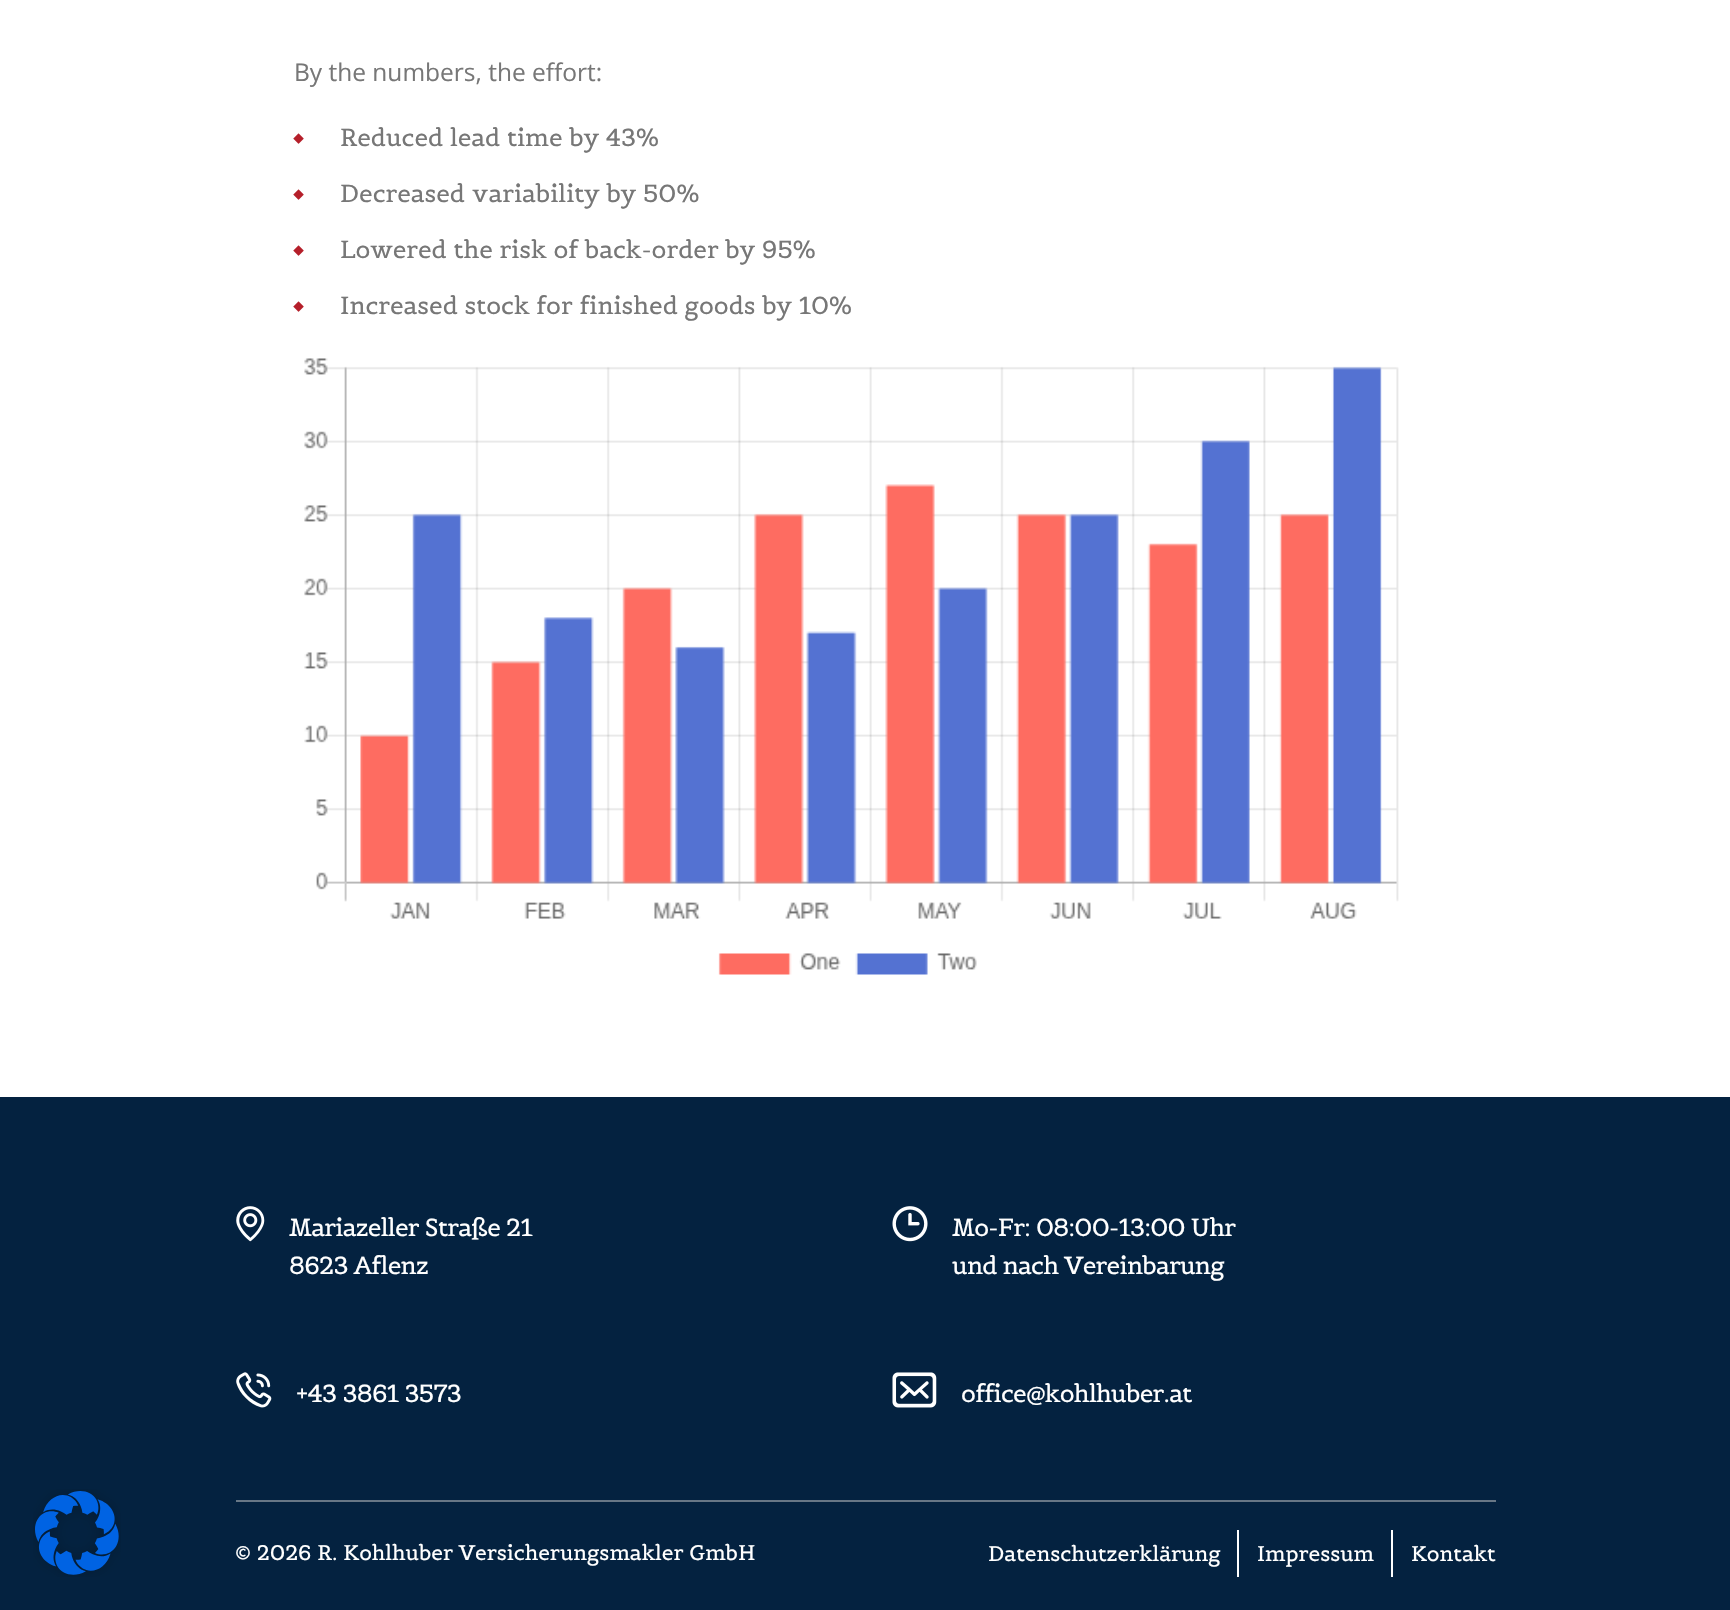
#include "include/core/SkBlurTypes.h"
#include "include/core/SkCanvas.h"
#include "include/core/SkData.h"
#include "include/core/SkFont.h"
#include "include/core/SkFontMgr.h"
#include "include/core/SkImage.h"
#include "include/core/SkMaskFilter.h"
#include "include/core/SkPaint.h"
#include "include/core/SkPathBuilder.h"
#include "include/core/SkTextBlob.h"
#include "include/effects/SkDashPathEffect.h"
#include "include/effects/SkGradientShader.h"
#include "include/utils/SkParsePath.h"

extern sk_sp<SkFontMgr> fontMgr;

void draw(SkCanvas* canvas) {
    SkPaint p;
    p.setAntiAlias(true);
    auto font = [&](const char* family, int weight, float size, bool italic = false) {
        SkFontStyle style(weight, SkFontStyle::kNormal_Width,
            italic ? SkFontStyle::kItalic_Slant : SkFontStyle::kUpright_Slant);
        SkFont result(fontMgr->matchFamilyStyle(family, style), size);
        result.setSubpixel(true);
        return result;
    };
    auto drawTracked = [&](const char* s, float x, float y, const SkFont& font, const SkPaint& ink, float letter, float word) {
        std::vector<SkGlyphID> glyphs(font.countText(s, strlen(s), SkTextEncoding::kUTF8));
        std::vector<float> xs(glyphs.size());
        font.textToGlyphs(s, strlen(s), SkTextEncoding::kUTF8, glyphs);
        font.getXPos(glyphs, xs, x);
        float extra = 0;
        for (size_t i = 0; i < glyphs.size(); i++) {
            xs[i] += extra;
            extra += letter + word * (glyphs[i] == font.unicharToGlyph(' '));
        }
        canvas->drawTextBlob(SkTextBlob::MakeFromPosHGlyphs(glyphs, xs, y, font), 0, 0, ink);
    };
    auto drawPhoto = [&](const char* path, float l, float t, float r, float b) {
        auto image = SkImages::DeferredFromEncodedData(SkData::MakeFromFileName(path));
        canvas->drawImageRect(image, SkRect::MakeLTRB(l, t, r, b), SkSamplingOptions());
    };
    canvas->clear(0xFFFFFFFF);
    p.setColor(0xFF042240);
    canvas->drawRect(SkRect::MakeLTRB(0, 1097, 1730, 1610), p);
    drawPhoto("media/1.png", 33, 1489, 121, 1577);
    auto font1 = font("Open Sans", 400, 24.5f);
    p.setColor(0xFF777777);
    canvas->drawString("By the numbers, the effort:", 294, 81, font1, p);
    drawPhoto("media/2.png", 293, 133, 304, 144);
    auto font2 = font("Belgrano", 400, 24.5f);
    canvas->drawString("Reduced lead time by 43%", 340, 146, font2, p);
    drawPhoto("media/2.png", 293, 189, 304, 200);
    canvas->drawString("Decreased variability by 50%", 340, 202, font2, p);
    drawPhoto("media/2.png", 293, 245, 304, 256);
    canvas->drawString("Lowered the risk of back-order by 95%", 340, 258, font2, p);
    drawPhoto("media/2.png", 293, 301, 304, 312);
    canvas->drawString("Increased stock for finished goods by 10%", 340, 314, font2, p);
    drawPhoto("media/3.png", 304, 358, 1399, 975);
    drawPhoto("media/4.png", 236, 1206, 265, 1242);
    p.setColor(0xFFFFFFFF);
    drawTracked("Mariazeller Straße 21", 289, 1236, font2, p, -0.7f, 0);
    drawTracked("8623 Aflenz", 289, 1274, font2, p, -0.7f, 0);
    drawPhoto("media/5.png", 892, 1206, 928, 1242);
    drawTracked("Mo-Fr: 08:00-13:00 Uhr", 952, 1236, font2, p, -0.7f, 0);
    drawTracked("und nach Vereinbarung", 952, 1274, font2, p, -0.7f, 0);
    drawPhoto("media/6.png", 236, 1372, 272, 1408);
    drawTracked("+43 3861 3573", 296, 1402, font2, p, -0.7f, 0);
    drawPhoto("media/7.png", 892, 1372, 937, 1408);
    drawTracked("office@kohlhuber.at", 961, 1402, font2, p, -0.7f, 0);
    p.setColor(0xFF687786);
    canvas->drawRect(SkRect::MakeLTRB(236, 1500, 1496, 1502), p);
    auto font3 = font("Belgrano", 400, 21);
    p.setColor(0xFFFFFFFF);
    canvas->drawString("© 2026 R. Kohlhuber Versicherungsmakler GmbH", 235, 1560, font3, p);
    canvas->drawRect(SkRect::MakeLTRB(1237, 1530, 1239, 1577), p);
    canvas->drawString("Datenschutzerklärung", 988, 1561, font3, p);
    canvas->drawRect(SkRect::MakeLTRB(1391, 1530, 1393, 1577), p);
    canvas->drawString("Impressum", 1257, 1561, font3, p);
    canvas->drawString("Kontakt", 1411, 1561, font3, p);
}
